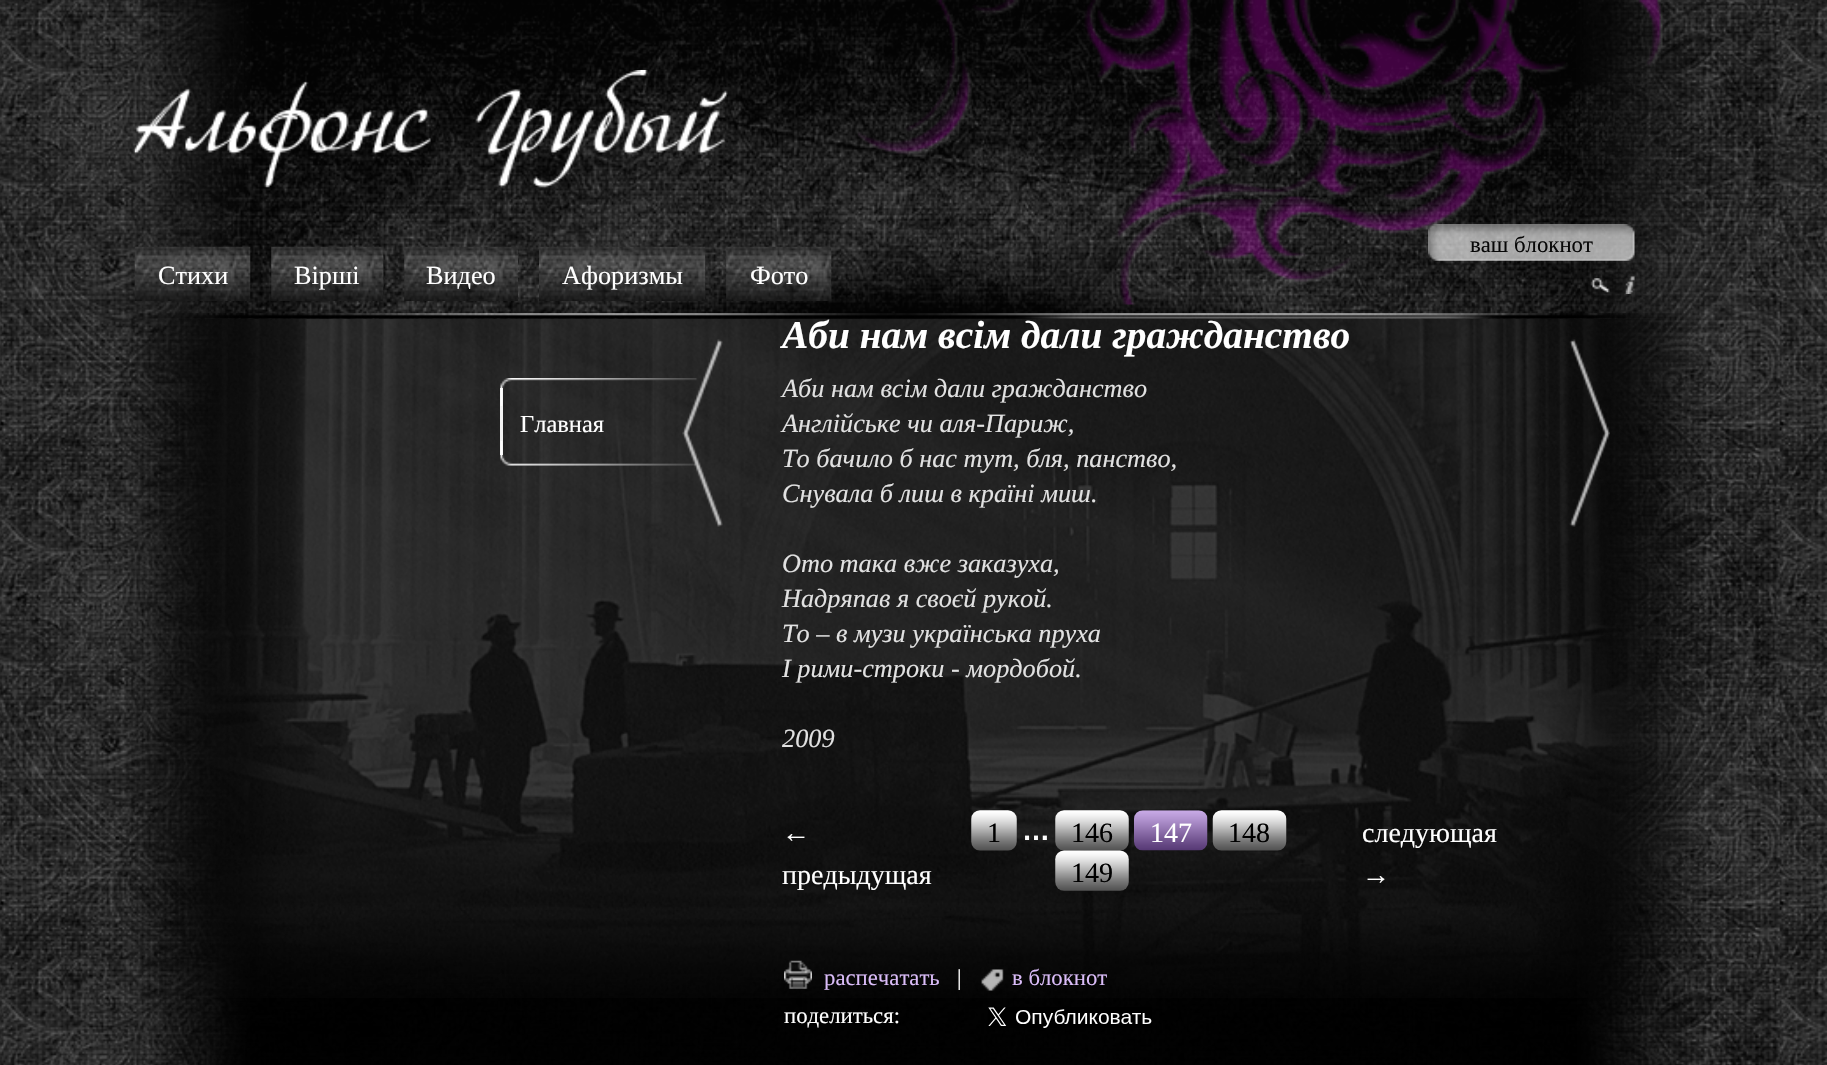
#include "include/core/SkBlurTypes.h"
#include "include/core/SkCanvas.h"
#include "include/core/SkData.h"
#include "include/core/SkFont.h"
#include "include/core/SkFontMgr.h"
#include "include/core/SkImage.h"
#include "include/core/SkMaskFilter.h"
#include "include/core/SkPaint.h"
#include "include/core/SkPathBuilder.h"
#include "include/core/SkTextBlob.h"
#include "include/effects/SkDashPathEffect.h"
#include "include/effects/SkGradientShader.h"
#include "include/utils/SkParsePath.h"

extern sk_sp<SkFontMgr> fontMgr;

void draw(SkCanvas* canvas) {
    SkPaint p;
    p.setAntiAlias(true);
    auto font = [&](const char* family, int weight, float size, bool italic = false) {
        SkFontStyle style(weight, SkFontStyle::kNormal_Width,
            italic ? SkFontStyle::kItalic_Slant : SkFontStyle::kUpright_Slant);
        SkFont result(fontMgr->matchFamilyStyle(family, style), size);
        result.setSubpixel(true);
        return result;
    };
    auto drawPhoto = [&](const char* path, float l, float t, float r, float b) {
        auto image = SkImages::DeferredFromEncodedData(SkData::MakeFromFileName(path));
        canvas->drawImageRect(image, SkRect::MakeLTRB(l, t, r, b), SkSamplingOptions());
    };
    canvas->clear(0xFFFFFFFF);
    drawPhoto("media/1.png", 0, 0, 1827, 1065);
    drawPhoto("media/14.png", 127, 318, 1701, 1065);
    drawPhoto("media/15.png", 128, 318, 1698, 998);
    drawPhoto("media/2.png", 128, 0, 1700, 319);
    drawPhoto("media/3.png", 858, 0, 1663, 305);
    drawPhoto("media/4.png", 134, 70, 728, 188);
    drawPhoto("media/5.png", 1428, 224, 1635, 261);
    auto font1 = font("Liberation Serif", 400, 22.75f);
    p.setColor(0xFF070707);
    canvas->drawString("ваш блокнот", 1470, 252, font1, p);
    drawPhoto("media/6.png", 1590, 278, 1610, 293);
    drawPhoto("media/7.png", 1625, 276, 1635, 294);
    drawPhoto("media/8.png", 134, 246, 251, 301);
    auto font2 = font("Liberation Serif", 400, 26.25f);
    p.setColor(0xFFFFFFFF);
    canvas->drawString("Стихи", 158, 284, font2, p);
    drawPhoto("media/9.png", 271, 246, 384, 301);
    canvas->drawString("Вірші", 294, 284, font2, p);
    drawPhoto("media/10.png", 404, 246, 518, 301);
    canvas->drawString("Видео", 426, 284, font2, p);
    drawPhoto("media/11.png", 539, 246, 706, 301);
    canvas->drawString("Афоризмы", 562, 284, font2, p);
    drawPhoto("media/12.png", 726, 246, 832, 301);
    canvas->drawString("Фото", 750, 284, font2, p);
    drawPhoto("media/13.png", 130, 313, 1695, 319);
    p.setColor(0xF0FFFFFF);
    canvas->drawRect(SkRect::MakeLTRB(500, 388, 503, 455), p);
    drawPhoto("media/16.png", 500, 378, 697, 406);
    auto font3 = font("Liberation Serif", 400, 24.5f);
    p.setColor(0xFFFFFFFF);
    canvas->drawString("Главная", 520, 432, font3, p);
    drawPhoto("media/17.png", 500, 441, 697, 466);
    drawPhoto("media/18.png", 682, 339, 723, 527);
    auto font4 = font("Liberation Serif", 700, 39.4f, true);
    canvas->drawString("Аби нам всім дали гражданство", 782, 348, font4, p);
    drawPhoto("media/19.png", 1569, 339, 1610, 527);
    auto font5 = font("Liberation Serif", 400, 26.25f, true);
    p.setColor(0xFFE1E1E1);
    {
        const struct { const char* s; float x, y; } items[] = {
            {"Аби нам всім дали гражданство", 782, 397},
            {"Англійське чи аля-Париж,", 782, 432},
            {"То бачило б нас тут, бля, панство,", 782, 467},
            {"Снувала б лиш в країні миш.", 782, 502},
            {"Ото така вже заказуха,", 782, 572},
            {"Надряпав я своєй рукой.", 782, 607},
            {"То – в музи українська пруха", 782, 642},
            {"І рими-строки - мордобой.", 782, 677},
            {"2009", 782, 747},
        };
        for (auto [s, x, y] : items) {
            canvas->drawString(s, x, y, font5, p);
        }
    }
    auto font6 = font("Liberation Serif", 400, 28);
    p.setColor(0xFFFFFFFF);
    canvas->drawString("←", 782, 842, font6, p);
    canvas->drawString("предыдущая", 782, 884, font6, p);
    drawPhoto("media/20.png", 971, 810, 1017, 851);
    p.setColor(0xFF000000);
    canvas->drawString("1", 987, 842, font6, p);
    auto font7 = font("Liberation Sans", 700, 28);
    p.setColor(0xFFFFFFFF);
    canvas->drawString("…", 1022, 840, font7, p);
    drawPhoto("media/21.png", 1055, 810, 1129, 851);
    p.setColor(0xFF000000);
    canvas->drawString("146", 1071, 842, font6, p);
    drawPhoto("media/22.png", 1134, 810, 1208, 851);
    p.setColor(0xFFFFFFFF);
    canvas->drawString("147", 1150, 842, font6, p);
    drawPhoto("media/23.png", 1212, 810, 1287, 851);
    p.setColor(0xFF000000);
    canvas->drawString("148", 1228, 842, font6, p);
    drawPhoto("media/24.png", 1055, 850, 1129, 891);
    canvas->drawString("149", 1071, 882, font6, p);
    p.setColor(0xFFFFFFFF);
    canvas->drawString("следующая", 1362, 842, font6, p);
    canvas->drawString("→", 1362, 884, font6, p);
    drawPhoto("media/25.png", 784, 960, 812, 989);
    p.setColor(0xFFDABCF8);
    canvas->drawString("распечатать", 824, 985, font1, p);
    p.setColor(0xFFFFFFFF);
    canvas->drawString("|", 957, 985, font1, p);
    drawPhoto("media/26.png", 981, 969, 1004, 991);
    p.setColor(0xFFDABCF8);
    canvas->drawString("в блокнот", 1012, 985, font1, p);
    p.setColor(0xFFFFFFFF);
    canvas->drawString("поделиться:", 784, 1023, font1, p);
    drawPhoto("media/27.png", 988, 1007, 1152, 1028);
}
